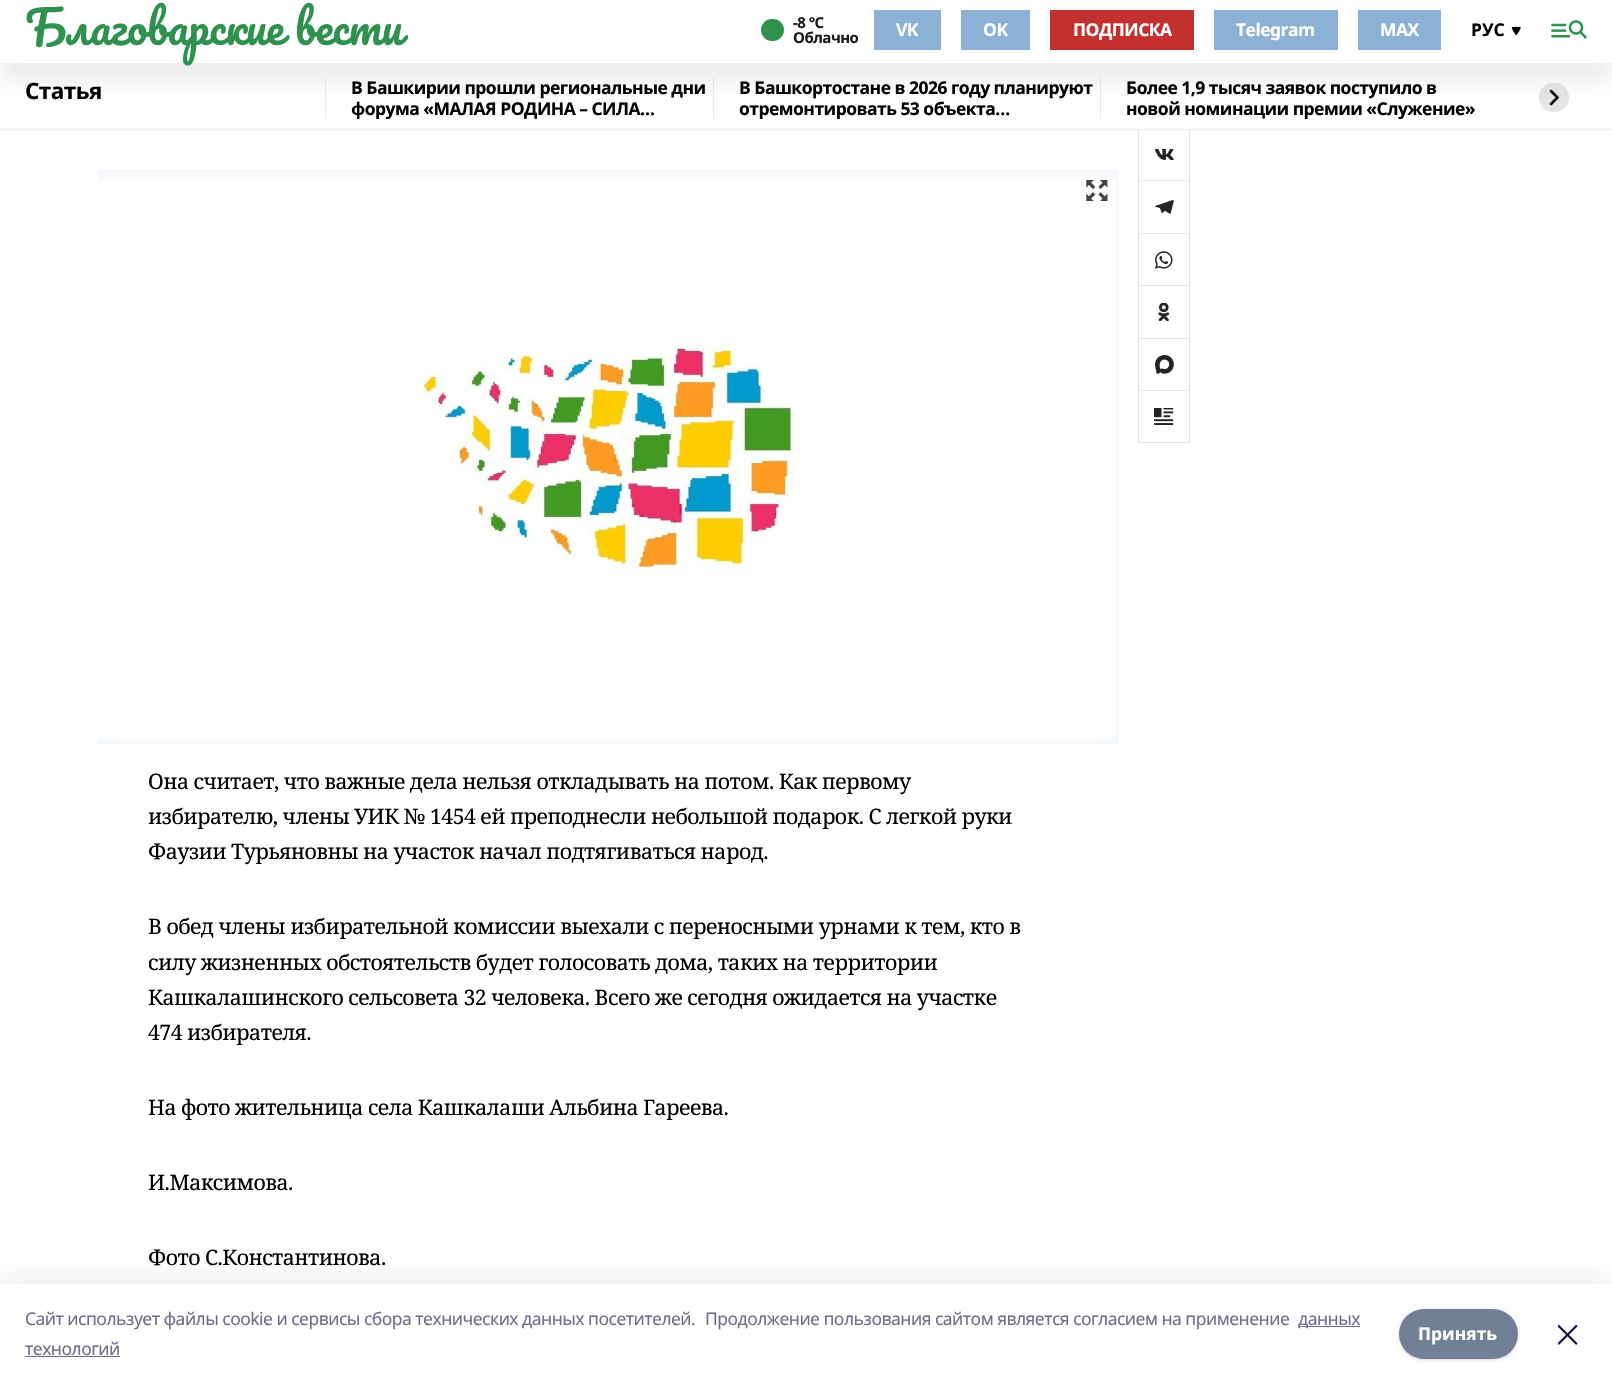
#include "include/core/SkBlurTypes.h"
#include "include/core/SkCanvas.h"
#include "include/core/SkData.h"
#include "include/core/SkFont.h"
#include "include/core/SkFontMgr.h"
#include "include/core/SkImage.h"
#include "include/core/SkMaskFilter.h"
#include "include/core/SkPaint.h"
#include "include/core/SkPathBuilder.h"
#include "include/core/SkTextBlob.h"
#include "include/effects/SkDashPathEffect.h"
#include "include/effects/SkGradientShader.h"
#include "include/utils/SkParsePath.h"

extern sk_sp<SkFontMgr> fontMgr;

void draw(SkCanvas* canvas) {
    SkPaint p;
    p.setAntiAlias(true);
    auto font = [&](const char* family, int weight, float size, bool italic = false) {
        SkFontStyle style(weight, SkFontStyle::kNormal_Width,
            italic ? SkFontStyle::kItalic_Slant : SkFontStyle::kUpright_Slant);
        SkFont result(fontMgr->matchFamilyStyle(family, style), size);
        result.setSubpixel(true);
        return result;
    };
    auto drawTracked = [&](const char* s, float x, float y, const SkFont& font, const SkPaint& ink, float letter, float word) {
        std::vector<SkGlyphID> glyphs(font.countText(s, strlen(s), SkTextEncoding::kUTF8));
        std::vector<float> xs(glyphs.size());
        font.textToGlyphs(s, strlen(s), SkTextEncoding::kUTF8, glyphs);
        font.getXPos(glyphs, xs, x);
        float extra = 0;
        for (size_t i = 0; i < glyphs.size(); i++) {
            xs[i] += extra;
            extra += letter + word * (glyphs[i] == font.unicharToGlyph(' '));
        }
        canvas->drawTextBlob(SkTextBlob::MakeFromPosHGlyphs(glyphs, xs, y, font), 0, 0, ink);
    };
    auto drawPhoto = [&](const char* path, float l, float t, float r, float b) {
        auto image = SkImages::DeferredFromEncodedData(SkData::MakeFromFileName(path));
        canvas->drawImageRect(image, SkRect::MakeLTRB(l, t, r, b), SkSamplingOptions());
    };
    canvas->clear(0xFFFFFFFF);
    {
        const struct { float l, t, r, b; SkColor color; } items[] = {
            {325, 78, 326, 119, 0xFFEAEAEA},
            {713, 78, 714, 119, 0xFFEAEAEA},
            {1100, 78, 1101, 119, 0xFFEAEAEA},
        };
        for (auto [l, t, r, b, color] : items) {
            p.setColor(color);
            canvas->drawRect(SkRect::MakeLTRB(l, t, r, b), p);
        }
    }
    canvas->save();
    canvas->clipRect(SkRect::MakeLTRB(1539, 83, 1569, 113));
    p.setColor(0xFFE6E6E6);
    canvas->drawCircle(1554, 97.5f, 15, p);
    canvas->restore();
    p.setStyle(SkPaint::kStroke_Style);
    p.setStrokeWidth(2.5f);
    p.setStrokeCap(SkPaint::kRound_Cap);
    p.setStrokeJoin(SkPaint::kRound_Join);
    p.setColor(0xFF000000);
    canvas->drawPath(SkPathBuilder().moveTo(1551, 91).lineTo(1557.5f, 97.5f).lineTo(1551, 104).detach(), p);
    p.setStyle(SkPaint::kFill_Style);
    p.setColor(0x14000000);
    p.setMaskFilter(SkMaskFilter::MakeBlur(kNormal_SkBlurStyle, 12.5f));
    canvas->drawRect(SkRect::MakeLTRB(0, 19, 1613, 81), p);
    p.setMaskFilter(nullptr);
    p.setColor(0xFFFFFFFF);
    canvas->drawRect(SkRect::MakeLTRB(0, 5, 1612, 63), p);
    auto font1 = font("Pacifico", 400, 45);
    p.setColor(0xFF2E914E);
    drawTracked("Благоварские вести", 25, 45, font1, p, -0.53f, 0);
    canvas->drawRoundRect(SkRect::MakeLTRB(761, 19, 784, 41), 11, 11, p);
    auto font2 = font("Noto Sans", 700, 15);
    p.setColor(0xFF1A1A1A);
    drawTracked("-8 °С", 793, 28, font2, p, -0.53f, 0);
    drawTracked("Облачно", 793, 43, font2, p, -0.53f, 0);
    p.setColor(0xFF8BB1D4);
    canvas->drawRect(SkRect::MakeLTRB(874, 10, 941, 50), p);
    auto font3 = font("Noto Sans", 700, 17.5f);
    p.setColor(0xFFFFFFFF);
    drawTracked("VK", 896, 36, font3, p, -0.53f, 0);
    p.setColor(0xFF8BB1D4);
    canvas->drawRect(SkRect::MakeLTRB(961, 10, 1030, 50), p);
    p.setColor(0xFFFFFFFF);
    drawTracked("OK", 983, 36, font3, p, -0.53f, 0);
    p.setColor(0xFFC23030);
    canvas->drawRect(SkRect::MakeLTRB(1050, 10, 1194, 50), p);
    p.setColor(0xFFFFFFFF);
    drawTracked("ПОДПИСКА", 1073, 36, font3, p, -0.53f, 0);
    p.setColor(0xFF8BB1D4);
    canvas->drawRect(SkRect::MakeLTRB(1214, 10, 1338, 50), p);
    p.setColor(0xFFFFFFFF);
    drawTracked("Telegram", 1236, 36, font3, p, -0.53f, 0);
    p.setColor(0xFF8BB1D4);
    canvas->drawRect(SkRect::MakeLTRB(1358, 10, 1441, 50), p);
    p.setColor(0xFFFFFFFF);
    drawTracked("MAX", 1380, 36, font3, p, -0.53f, 0);
    drawPhoto("media/1.png", 1511, 26, 1521, 35);
    p.setColor(0xFF000000);
    canvas->drawString("РУС", 1471, 36, font3, p);
    drawPhoto("media/2.png", 1551, 20, 1587, 39);
    {
        const struct { float l, t, r, b; SkColor color; } items[] = {
            {1189, 128, 1190, 180, 0xFFE2E2E2},
            {1138, 128, 1139, 180, 0xFFE2E2E2},
            {1138, 128, 1190, 129, 0xFFFFFFFF},
            {0, 129, 1612, 130, 0xFFEAEAEA},
        };
        for (auto [l, t, r, b, color] : items) {
            p.setColor(color);
            canvas->drawRect(SkRect::MakeLTRB(l, t, r, b), p);
        }
    }
    auto font4 = font("Noto Sans", 700, 22.5f);
    p.setColor(0xFF000000);
    drawTracked("Статья", 25, 99, font4, p, -0.53f, 0);
    drawTracked("В Башкирии прошли региональные дни", 351, 94, font3, p, -0.53f, 0);
    canvas->save();
    canvas->clipRect(SkRect::MakeLTRB(326, 78, 713, 119));
    drawTracked("форума «МАЛАЯ РОДИНА – СИЛА…", 351, 115, font3, p, -0.53f, 0);
    canvas->restore();
    drawTracked("В Башкортостане в 2026 году планируют", 739, 94, font3, p, -0.53f, 0);
    canvas->save();
    canvas->clipRect(SkRect::MakeLTRB(714, 78, 1100, 119));
    drawTracked("отремонтировать 53 объекта…", 739, 115, font3, p, -0.53f, 0);
    canvas->restore();
    drawTracked("Более 1,9 тысяч заявок поступило в", 1126, 94, font3, p, -0.53f, 0);
    canvas->save();
    canvas->clipRect(SkRect::MakeLTRB(1101, 78, 1488, 119));
    drawTracked("новой номинации премии «Служение»", 1126, 115, font3, p, -0.53f, 0);
    canvas->restore();
    drawPhoto("media/3.png", 1155, 149, 1174, 160);
    drawPhoto("media/4.png", 1155, 200, 1174, 214);
    {
        const struct { float l, t, r, b; SkColor color; } items[] = {
            {1138, 180, 1190, 181, 0xFFE2E2E2},
            {1189, 180, 1190, 233, 0xFFE2E2E2},
            {1138, 180, 1139, 233, 0xFFE2E2E2},
        };
        for (auto [l, t, r, b, color] : items) {
            p.setColor(color);
            canvas->drawRect(SkRect::MakeLTRB(l, t, r, b), p);
        }
    }
    drawPhoto("media/5.png", 1155, 251, 1173, 269);
    {
        const struct { float l, t, r, b; SkColor color; } items[] = {
            {1138, 233, 1190, 234, 0xFFE2E2E2},
            {1189, 233, 1190, 285, 0xFFE2E2E2},
            {1138, 233, 1139, 285, 0xFFE2E2E2},
        };
        for (auto [l, t, r, b, color] : items) {
            p.setColor(color);
            canvas->drawRect(SkRect::MakeLTRB(l, t, r, b), p);
        }
    }
    drawPhoto("media/6.png", 1158, 303, 1170, 321);
    {
        const struct { float l, t, r, b; SkColor color; } items[] = {
            {1138, 285, 1190, 286, 0xFFE2E2E2},
            {1189, 285, 1190, 338, 0xFFE2E2E2},
            {1138, 285, 1139, 338, 0xFFE2E2E2},
        };
        for (auto [l, t, r, b, color] : items) {
            p.setColor(color);
            canvas->drawRect(SkRect::MakeLTRB(l, t, r, b), p);
        }
    }
    drawPhoto("media/7.png", 1155, 355, 1174, 374);
    {
        const struct { float l, t, r, b; SkColor color; } items[] = {
            {1138, 338, 1190, 339, 0xFFE2E2E2},
            {1189, 338, 1190, 390, 0xFFE2E2E2},
            {1138, 338, 1139, 390, 0xFFE2E2E2},
        };
        for (auto [l, t, r, b, color] : items) {
            p.setColor(color);
            canvas->drawRect(SkRect::MakeLTRB(l, t, r, b), p);
        }
    }
    drawPhoto("media/8.png", 1154, 408, 1174, 425);
    p.setStyle(SkPaint::kStroke_Style);
    p.setStrokeWidth(1);
    p.setStrokeCap(SkPaint::kButt_Cap);
    p.setStrokeJoin(SkPaint::kMiter_Join);
    canvas->drawRect(SkRect::MakeLTRB(1138.5f, 390.5f, 1189.5f, 442.5f), p);
    p.setStyle(SkPaint::kFill_Style);
    p.setColor(0xFFEDF2F7);
    canvas->drawRect(SkRect::MakeLTRB(98, 170, 1118, 744), p);
    drawPhoto("media/9.png", 98, 170, 1118, 744);
    drawPhoto("media/10.png", 98, 179, 1117, 737);
    drawPhoto("media/11.png", 1086, 180, 1108, 201);
    auto font5 = font("Noto Serif", 400, 21.25f);
    p.setColor(0xFF000000);
    {
        const struct { const char* s; float x, y; } items[] = {
            {"Она считает, что важные дела нельзя откладывать на потом. Как первому", 148, 789},
            {"избирателю, члены УИК № 1454 ей преподнесли небольшой подарок. С легкой руки", 148, 824},
            {"Фаузии Турьяновны на участок начал подтягиваться народ.", 148, 859},
            {"В обед члены избирательной комиссии выехали с переносными урнами к тем, кто в", 148, 934},
            {"силу жизненных обстоятельств будет голосовать дома, таких на территории", 148, 970},
            {"Кашкалашинского сельсовета 32 человека. Всего же сегодня ожидается на участке", 148, 1005},
            {"474 избирателя.", 148, 1040},
            {"На фото жительница села Кашкалаши Альбина Гареева.", 148, 1115},
            {"И.Максимова.", 148, 1190},
            {"Фото С.Константинова.", 148, 1265},
        };
        for (auto [s, x, y] : items) {
            drawTracked(s, x, y, font5, p, -0.53f, 0);
        }
    }
    p.setColor(0x1414142B);
    p.setMaskFilter(SkMaskFilter::MakeBlur(kNormal_SkBlurStyle, 14.5f));
    canvas->drawRect(SkRect::MakeLTRB(0, 1276, 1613, 1376), p);
    p.setMaskFilter(nullptr);
    p.setColor(0xFFFFFFFF);
    canvas->drawRect(SkRect::MakeLTRB(0, 1284, 1612, 1383), p);
    auto font6 = font("Noto Sans", 400, 17.5f);
    p.setColor(0xFF6F6C90);
    drawTracked("Cайт использует файлы cookie и сервисы сбора технических данных посетителей.", 25, 1325, font6, p, -0.53f, 0);
    drawTracked("Продолжение пользования сайтом является согласием на применение", 705, 1325, font6, p, -0.53f, 0);
    canvas->drawRect(SkRect::MakeLTRB(1299, 1326, 1360, 1327), p);
    drawTracked("данных", 1298, 1325, font6, p, -0.53f, 0);
    drawTracked("технологий", 25, 1355, font6, p, -0.53f, 0);
    canvas->drawRect(SkRect::MakeLTRB(25, 1356, 120, 1357), p);
    p.setColor(0x0F000000);
    p.setMaskFilter(SkMaskFilter::MakeBlur(kNormal_SkBlurStyle, 1));
    canvas->drawRoundRect(SkRect::MakeLTRB(1399, 1310, 1518, 1360), 25, 25, p);
    p.setMaskFilter(nullptr);
    p.setColor(0x1A000000);
    p.setMaskFilter(SkMaskFilter::MakeBlur(kNormal_SkBlurStyle, 2));
    canvas->drawRoundRect(SkRect::MakeLTRB(1399, 1310, 1518, 1360), 25, 25, p);
    p.setMaskFilter(nullptr);
    p.setColor(0xFF718096);
    canvas->drawRoundRect(SkRect::MakeLTRB(1399, 1309, 1518, 1359), 25, 25, p);
    p.setColor(0xFFFFFFFF);
    canvas->drawString("Принять", 1418, 1340, font3, p);
    drawPhoto("media/12.png", 1558, 1325, 1578, 1345);
}
